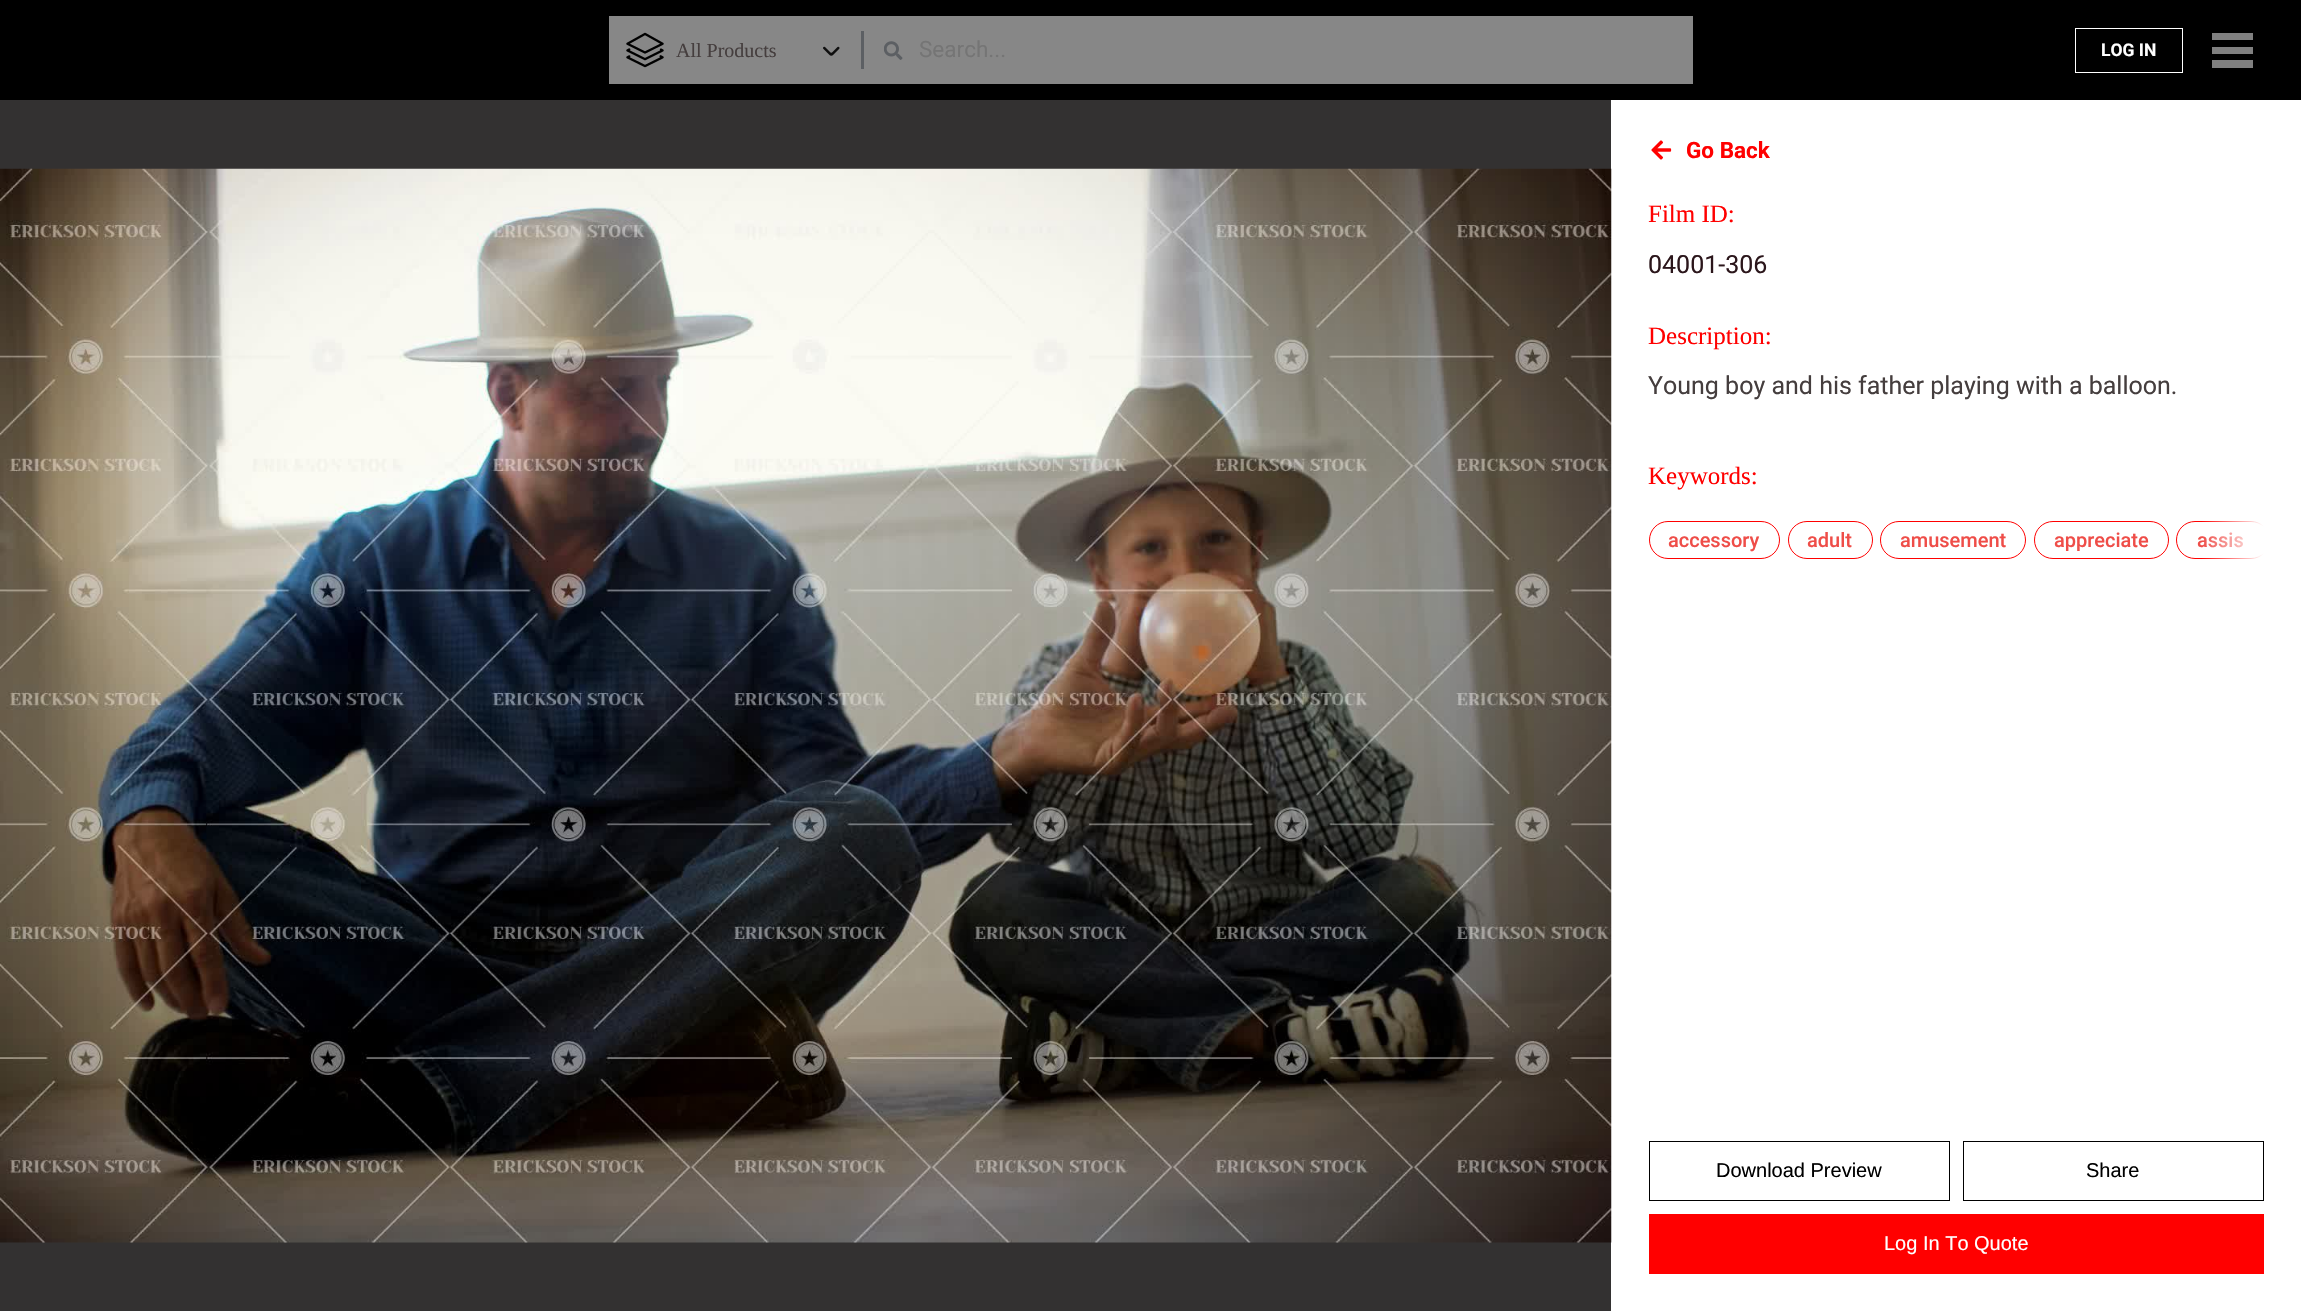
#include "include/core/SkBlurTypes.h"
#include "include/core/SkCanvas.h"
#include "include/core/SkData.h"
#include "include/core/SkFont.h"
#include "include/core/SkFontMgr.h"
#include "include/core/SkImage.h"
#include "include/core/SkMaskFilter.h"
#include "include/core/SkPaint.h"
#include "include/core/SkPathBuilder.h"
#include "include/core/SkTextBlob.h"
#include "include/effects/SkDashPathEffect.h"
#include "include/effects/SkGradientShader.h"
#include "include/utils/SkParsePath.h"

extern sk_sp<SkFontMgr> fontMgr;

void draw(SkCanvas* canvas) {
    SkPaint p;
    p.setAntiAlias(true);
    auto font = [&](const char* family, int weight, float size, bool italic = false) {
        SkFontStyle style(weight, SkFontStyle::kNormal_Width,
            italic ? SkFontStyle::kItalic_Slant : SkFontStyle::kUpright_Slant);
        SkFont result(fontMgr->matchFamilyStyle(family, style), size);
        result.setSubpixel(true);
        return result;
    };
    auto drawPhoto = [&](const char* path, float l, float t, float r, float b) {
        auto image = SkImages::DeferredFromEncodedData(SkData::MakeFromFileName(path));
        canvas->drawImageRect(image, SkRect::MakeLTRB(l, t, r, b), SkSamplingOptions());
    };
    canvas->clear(0xFFFFFFFF);
    p.setColor(0xFF000000);
    canvas->drawRect(SkRect::MakeLTRB(0, 0, 2301, 100), p);
    p.setColor(0xFF878787);
    canvas->drawRect(SkRect::MakeLTRB(609, 16, 1693, 84), p);
    drawPhoto("media/1.png", 626, 32, 664, 68);
    auto font1 = font("Liberation Serif", 400, 20);
    p.setColor(0xFF453E3E);
    canvas->drawString("All Products", 676, 57, font1, p);
    drawPhoto("media/2.png", 823, 46, 840, 56);
    p.setColor(0xFF5C5F63);
    canvas->drawRect(SkRect::MakeLTRB(861, 31, 864, 69), p);
    drawPhoto("media/3.png", 884, 41, 903, 60);
    auto font2 = font("Roboto", 400, 22.5f);
    p.setColor(0xFF757575);
    canvas->drawString("Search...", 919, 57, font2, p);
    p.setStyle(SkPaint::kStroke_Style);
    p.setStrokeWidth(1);
    p.setColor(0xFFFFFFFF);
    canvas->drawRect(SkRect::MakeLTRB(2075.5f, 28.5f, 2182.5f, 72.5f), p);
    auto font3 = font("Roboto", 700, 17.5f);
    p.setStyle(SkPaint::kFill_Style);
    canvas->drawString("LOG IN", 2101, 56, font3, p);
    p.setColor(0xFF808080);
    canvas->drawPath(SkPathBuilder().moveTo(2212, 33).lineTo(2253, 33).lineTo(2253, 40).lineTo(2212, 40).close().moveTo(2212, 47).lineTo(2253, 47).lineTo(2253, 54).lineTo(2212, 54).close().moveTo(2212, 60).lineTo(2253, 60).lineTo(2253, 68).lineTo(2212, 68).close().detach(), p);
    p.setColor(0xFF333131);
    canvas->drawRect(SkRect::MakeLTRB(0, 100, 1611, 1311), p);
    drawPhoto("media/4.png", 0, 168, 1612, 1243);
    drawPhoto("media/5.png", 1651, 140, 1672, 160);
    auto font4 = font("Roboto", 700, 22.5f);
    p.setColor(0xFFFF0000);
    canvas->drawString("Go Back", 1686, 158, font4, p);
    auto font5 = font("Liberation Serif", 400, 25);
    canvas->drawString("Film ID:", 1648, 222, font5, p);
    auto font6 = font("Roboto", 400, 25);
    p.setColor(0xFF2B161B);
    canvas->drawString("04001-306", 1648, 273, font6, p);
    p.setColor(0xFFFF0000);
    canvas->drawString("Description:", 1648, 344, font5, p);
    p.setColor(0xFF453E3E);
    canvas->drawString("Young boy and his father playing with a balloon.", 1648, 394, font6, p);
    p.setColor(0xFFFF0000);
    canvas->drawString("Keywords:", 1648, 484, font5, p);
    canvas->save();
    canvas->clipRect(SkRect::MakeLTRB(1649, 509, 2264, 585));
    p.setStyle(SkPaint::kStroke_Style);
    canvas->drawRoundRect(SkRect::MakeLTRB(2176.5f, 521.5f, 2269.5f, 558.5f), 18.5f, 18.5f, p);
    canvas->restore();
    auto font7 = font("Roboto", 500, 20);
    p.setStyle(SkPaint::kFill_Style);
    p.setColor(0xFFEF4D48);
    canvas->drawString("assis", 2197, 547, font7, p);
    {
        const SkColor colors[] = {0xFFFFFFFF, 0x00FFFFFF};
        const float stops[] = {0, 1};
        const SkPoint ends[] = {{2264, 547}, {2201, 547}};
        p.setShader(SkGradientShader::MakeLinear(ends, colors, stops, 2, SkTileMode::kClamp));
        p.setAlpha(255);
    }
    canvas->drawRect(SkRect::MakeLTRB(2202, 521, 2264, 559), p);
    p.setStyle(SkPaint::kStroke_Style);
    p.setShader(nullptr);
    p.setColor(0xFFFF0000);
    canvas->drawRoundRect(SkRect::MakeLTRB(1649.5f, 521.5f, 1779.5f, 558.5f), 18.5f, 18.5f, p);
    p.setStyle(SkPaint::kFill_Style);
    p.setColor(0xFFEF4D48);
    canvas->drawString("accessory", 1668, 547, font7, p);
    p.setStyle(SkPaint::kStroke_Style);
    p.setColor(0xFFFF0000);
    canvas->drawRoundRect(SkRect::MakeLTRB(1788.5f, 521.5f, 1872.5f, 558.5f), 18.5f, 18.5f, p);
    p.setStyle(SkPaint::kFill_Style);
    p.setColor(0xFFEF4D48);
    canvas->drawString("adult", 1807, 547, font7, p);
    p.setStyle(SkPaint::kStroke_Style);
    p.setColor(0xFFFF0000);
    canvas->drawRoundRect(SkRect::MakeLTRB(1880.5f, 521.5f, 2025.5f, 558.5f), 18.5f, 18.5f, p);
    p.setStyle(SkPaint::kFill_Style);
    p.setColor(0xFFEF4D48);
    canvas->drawString("amusement", 1900, 547, font7, p);
    p.setStyle(SkPaint::kStroke_Style);
    p.setColor(0xFFFF0000);
    canvas->drawRoundRect(SkRect::MakeLTRB(2034.5f, 521.5f, 2168.5f, 558.5f), 18.5f, 18.5f, p);
    p.setStyle(SkPaint::kFill_Style);
    p.setColor(0xFFEF4D48);
    canvas->drawString("appreciate", 2054, 547, font7, p);
    p.setStyle(SkPaint::kStroke_Style);
    p.setColor(0xFF000000);
    canvas->drawRect(SkRect::MakeLTRB(1649.5f, 1141.5f, 1949.5f, 1200.5f), p);
    auto font8 = font("Liberation Sans", 400, 20);
    p.setStyle(SkPaint::kFill_Style);
    canvas->drawString("Download Preview", 1716, 1177, font8, p);
    p.setStyle(SkPaint::kStroke_Style);
    canvas->drawRect(SkRect::MakeLTRB(1963.5f, 1141.5f, 2263.5f, 1200.5f), p);
    p.setStyle(SkPaint::kFill_Style);
    canvas->drawString("Share", 2086, 1177, font8, p);
    p.setColor(0xFFFF0000);
    canvas->drawRect(SkRect::MakeLTRB(1649, 1214, 2264, 1274), p);
    p.setColor(0xFFFFFFFF);
    canvas->drawString("Log In To Quote", 1884, 1250, font8, p);
}
